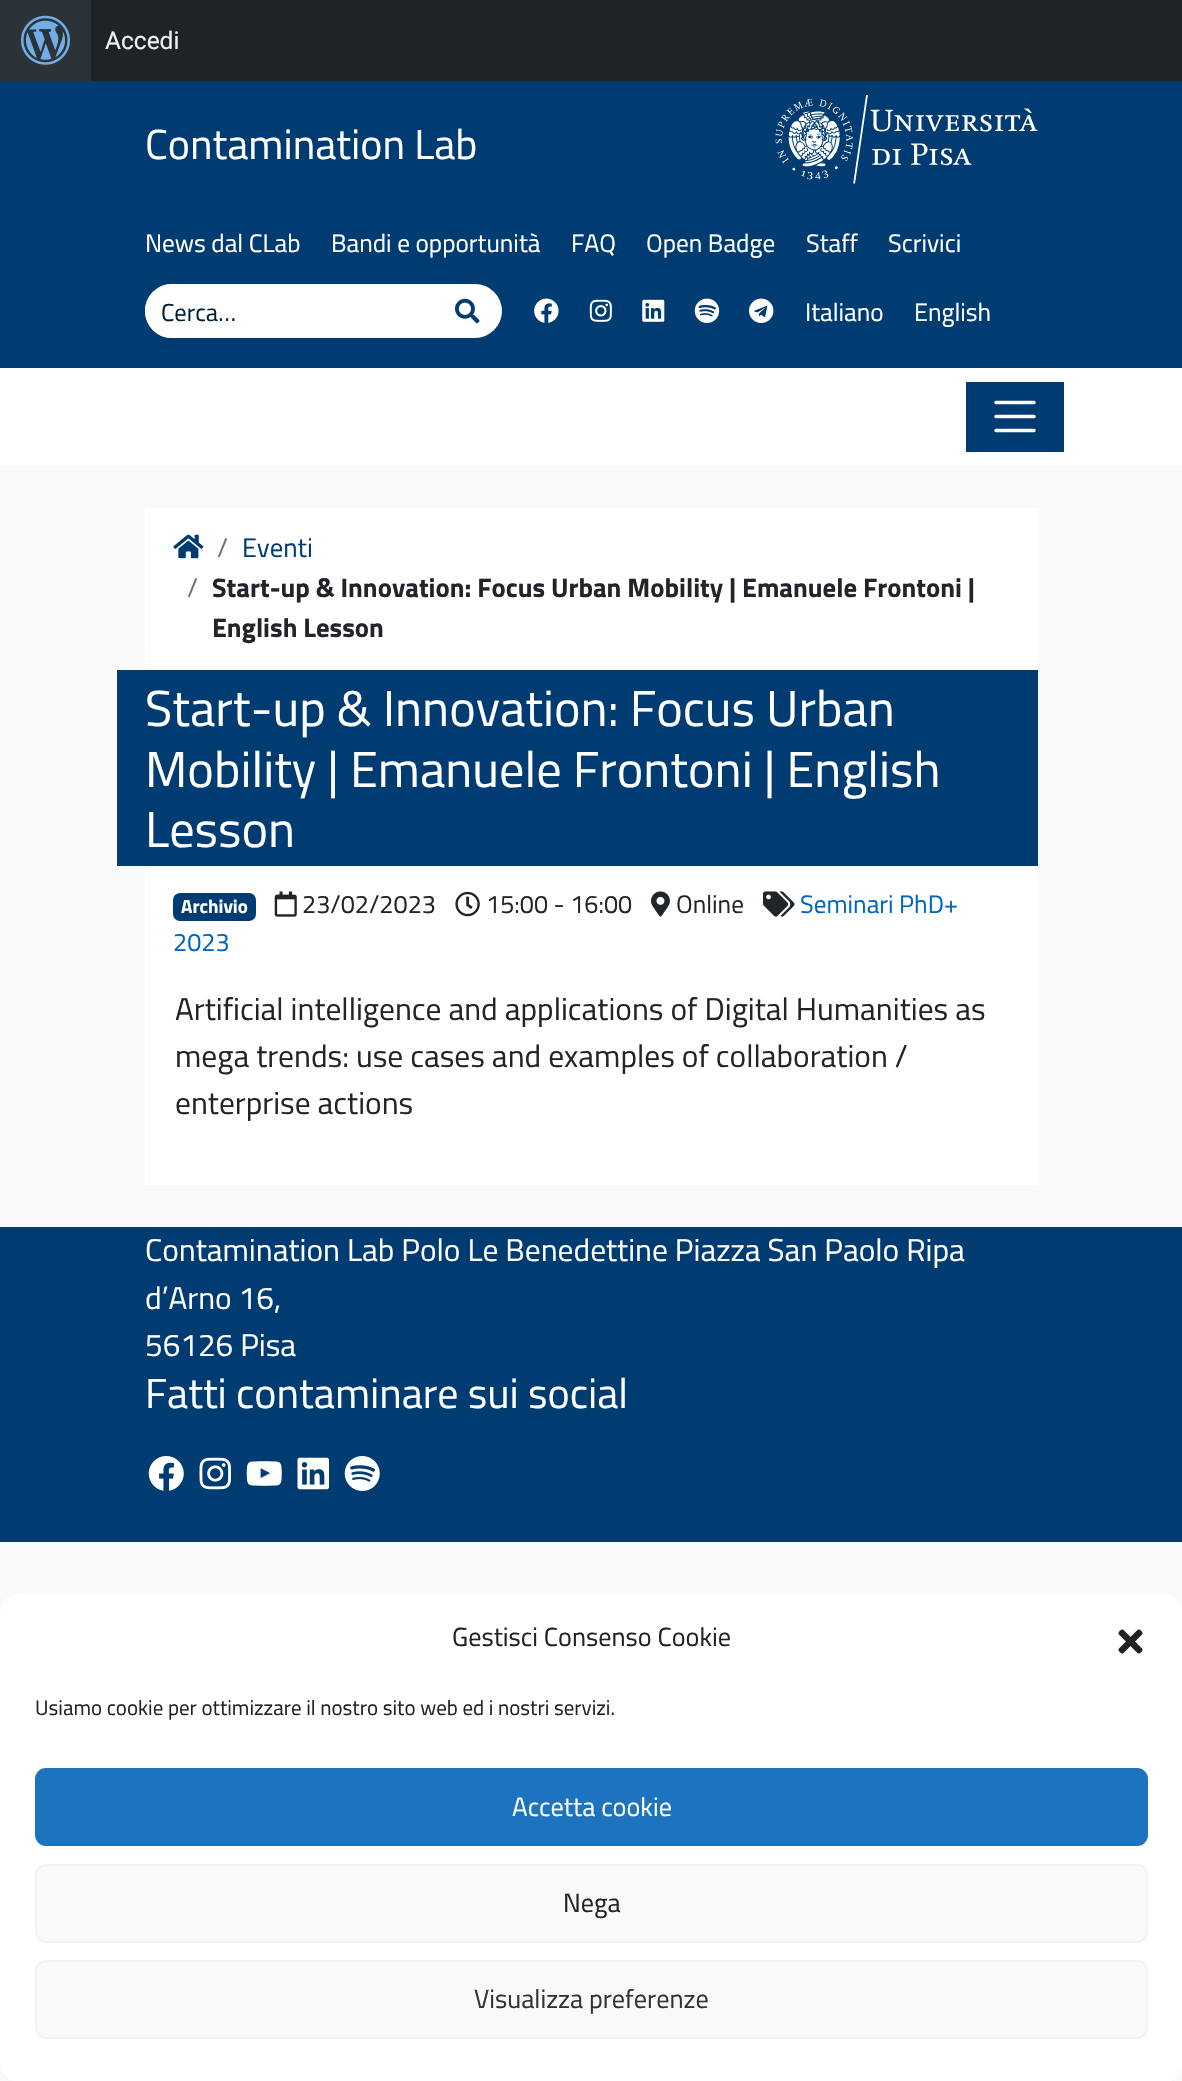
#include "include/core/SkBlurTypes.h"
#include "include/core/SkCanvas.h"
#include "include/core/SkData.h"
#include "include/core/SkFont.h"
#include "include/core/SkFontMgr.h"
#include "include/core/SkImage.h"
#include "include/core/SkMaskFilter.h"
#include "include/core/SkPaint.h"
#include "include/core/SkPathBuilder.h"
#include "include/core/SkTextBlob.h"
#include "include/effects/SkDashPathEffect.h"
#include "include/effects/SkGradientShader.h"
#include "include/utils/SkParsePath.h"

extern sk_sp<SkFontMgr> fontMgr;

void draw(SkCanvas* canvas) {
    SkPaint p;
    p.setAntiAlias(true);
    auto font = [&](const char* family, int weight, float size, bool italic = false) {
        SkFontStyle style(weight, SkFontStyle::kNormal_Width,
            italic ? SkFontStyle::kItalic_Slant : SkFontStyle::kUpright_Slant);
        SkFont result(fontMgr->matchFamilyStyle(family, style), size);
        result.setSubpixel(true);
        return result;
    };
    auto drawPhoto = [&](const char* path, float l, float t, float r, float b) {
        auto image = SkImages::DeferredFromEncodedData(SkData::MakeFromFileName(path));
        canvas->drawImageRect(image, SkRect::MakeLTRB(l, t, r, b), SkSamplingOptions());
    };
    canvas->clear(0xFFF9F9F9);
    p.setColor(0xFF1D2327);
    canvas->drawRect(SkRect::MakeLTRB(91, 0, 1182, 81), p);
    p.setColor(0xFF2C3338);
    canvas->drawRect(SkRect::MakeLTRB(0, 0, 91, 81), p);
    drawPhoto("media/1.png", 21, 15, 70, 65);
    auto font1 = font("Roboto", 400, 24.5f);
    p.setColor(0xFFF0F0F1);
    canvas->drawString("Accedi", 105, 49, font1, p);
    p.setColor(0xFF003C71);
    canvas->drawRect(SkRect::MakeLTRB(0, 81, 1182, 368), p);
    auto font2 = font("Titillium Web", 400, 42);
    p.setColor(0xFFFFFFFF);
    canvas->drawString("Contamination Lab", 145, 159, font2, p);
    drawPhoto("media/2.png", 775, 95, 1038, 184);
    auto font3 = font("Titillium Web", 400, 25.25f);
    {
        const struct { const char* s; float x, y; } items[] = {
            {"News dal CLab", 145, 252},
            {"Bandi e opportunità", 331, 252},
            {"FAQ", 571, 252},
            {"Open Badge", 646, 252},
            {"Staff", 806, 252},
            {"Scrivici", 888, 252},
        };
        for (auto [s, x, y] : items) {
            canvas->drawString(s, x, y, font3, p);
        }
    }
    canvas->drawRoundRect(SkRect::MakeLTRB(145, 284, 502, 338), 27, 27, p);
    p.setStyle(SkPaint::kStroke_Style);
    p.setStrokeWidth(2);
    canvas->drawPath(SkPathBuilder().moveTo(172, 285).lineTo(440, 285).lineTo(440, 337).lineTo(172, 337).cubicTo(157.5f, 337, 146, 325.5f, 146, 311).cubicTo(146, 296.5f, 157.5f, 285, 172, 285).close().detach(), p);
    auto font4 = font("Titillium Web", 400, 24.5f);
    p.setStyle(SkPaint::kFill_Style);
    p.setColor(0xFF002038);
    canvas->drawString("Cerca…", 161, 321, font4, p);
    drawPhoto("media/3.png", 455, 298, 480, 324);
    drawPhoto("media/4.png", 534, 298, 559, 323);
    drawPhoto("media/5.png", 589, 299, 612, 322);
    drawPhoto("media/6.png", 642, 299, 665, 322);
    drawPhoto("media/7.png", 694, 298, 720, 323);
    drawPhoto("media/8.png", 749, 298, 774, 323);
    p.setColor(0xFFFFFFFF);
    canvas->drawString("Italiano", 805, 321, font3, p);
    canvas->drawString("English", 914, 321, font3, p);
    canvas->drawRect(SkRect::MakeLTRB(0, 368, 1182, 466), p);
    p.setColor(0xFF003C71);
    canvas->drawRect(SkRect::MakeLTRB(966, 382, 1064, 452), p);
    p.setStyle(SkPaint::kStroke_Style);
    p.setStrokeWidth(3.5f);
    p.setStrokeCap(SkPaint::kRound_Cap);
    p.setColor(0xFFFFFFFF);
    canvas->drawPath(SkPathBuilder().moveTo(996, 402.5f).lineTo(1034, 402.5f).moveTo(996, 416.5f).lineTo(1034, 416.5f).moveTo(996, 430.5f).lineTo(1034, 430.5f).detach(), p);
    p.setStyle(SkPaint::kFill_Style);
    canvas->drawRect(SkRect::MakeLTRB(145, 508, 1038, 670), p);
    drawPhoto("media/9.png", 173, 534, 204, 559);
    auto font5 = font("Titillium Web", 400, 26.75f);
    p.setColor(0xFF6C757D);
    canvas->drawString("/", 217, 557, font5, p);
    p.setColor(0xFF003C71);
    canvas->drawString("Eventi", 242, 557, font5, p);
    p.setColor(0xFF6C757D);
    canvas->drawString("/", 187, 597, font5, p);
    auto font6 = font("Titillium Web", 700, 26.75f);
    p.setColor(0xFF212529);
    canvas->drawString("Start-up & Innovation: Focus Urban Mobility | Emanuele Frontoni |", 212, 597, font6, p);
    canvas->drawString("English Lesson", 212, 637, font6, p);
    p.setColor(0xFF003C71);
    canvas->drawRect(SkRect::MakeLTRB(117, 670, 1038, 866), p);
    auto font7 = font("Titillium Web", 400, 50.4f);
    p.setColor(0xFFFFFFFF);
    {
        const struct { const char* s; float x, y; } items[] = {
            {"Start-up & Innovation: Focus Urban", 145, 726},
            {"Mobility | Emanuele Frontoni | English", 145, 787},
            {"Lesson", 145, 847},
        };
        for (auto [s, x, y] : items) {
            canvas->drawString(s, x, y, font7, p);
        }
    }
    canvas->drawRect(SkRect::MakeLTRB(145, 866, 1038, 1185), p);
    drawPhoto("media/10.png", 763, 891, 795, 917);
    p.setColor(0xFF0065BE);
    canvas->drawString("Seminari PhD+", 800, 913, font3, p);
    canvas->drawString("2023", 173, 951, font3, p);
    p.setColor(0xFF003C71);
    canvas->drawRoundRect(SkRect::MakeLTRB(173, 893, 256, 921), 7, 7, p);
    auto font8 = font("Titillium Web", 700, 19);
    p.setColor(0xFFFFFFFF);
    canvas->drawString("Archivio", 181, 913, font8, p);
    drawPhoto("media/11.png", 274, 891, 297, 917);
    p.setColor(0xFF212529);
    canvas->drawString("23/02/2023", 302, 913, font3, p);
    drawPhoto("media/12.png", 455, 891, 480, 917);
    canvas->drawString("15:00 - 16:00", 486, 913, font3, p);
    drawPhoto("media/13.png", 651, 891, 670, 917);
    canvas->drawString("Online", 676, 913, font3, p);
    auto font9 = font("Titillium Web", 400, 31.5f);
    {
        const struct { const char* s; float x, y; } items[] = {
            {"Artificial intelligence and applications of Digital Humanities as", 175, 1020},
            {"mega trends: use cases and examples of collaboration /", 175, 1067},
            {"enterprise actions", 175, 1114},
        };
        for (auto [s, x, y] : items) {
            canvas->drawString(s, x, y, font9, p);
        }
    }
    p.setColor(0xFF003C71);
    canvas->drawRect(SkRect::MakeLTRB(0, 1227, 1182, 1542), p);
    p.setColor(0xFFFFFFFF);
    {
        const struct { const char* s; float x, y; } items[] = {
            {"Contamination Lab Polo Le Benedettine Piazza San Paolo Ripa", 145, 1261},
            {"d’Arno 16,", 145, 1309},
            {"56126 Pisa", 145, 1356},
        };
        for (auto [s, x, y] : items) {
            canvas->drawString(s, x, y, font9, p);
        }
    }
    canvas->drawString("Fatti contaminare sui social", 145, 1408, font2, p);
    drawPhoto("media/14.png", 148, 1456, 184, 1491);
    drawPhoto("media/15.png", 199, 1457, 231, 1490);
    drawPhoto("media/16.png", 246, 1461, 282, 1486);
    drawPhoto("media/17.png", 297, 1457, 329, 1490);
    drawPhoto("media/18.png", 344, 1456, 380, 1491);
    canvas->drawRoundRect(SkRect::MakeLTRB(0, 1593, 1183, 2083), 21, 21, p);
    auto font10 = font("Titillium Web", 400, 26.25f);
    p.setColor(0xFF222222);
    canvas->drawString("Gestisci Consenso Cookie", 452, 1646, font10, p);
    drawPhoto("media/19.png", 1118, 1629, 1143, 1654);
    auto font11 = font("Titillium Web", 400, 21);
    canvas->drawString("Usiamo cookie per ottimizzare il nostro sito web ed i nostri servizi.", 35, 1715, font11, p);
    p.setColor(0xFF1E73BE);
    canvas->drawRoundRect(SkRect::MakeLTRB(36, 1769, 1147, 1845), 10, 10, p);
    p.setStyle(SkPaint::kStroke_Style);
    p.setStrokeWidth(2);
    p.setStrokeCap(SkPaint::kButt_Cap);
    canvas->drawRoundRect(SkRect::MakeLTRB(36, 1769, 1147, 1845), 10, 10, p);
    p.setStyle(SkPaint::kFill_Style);
    p.setColor(0xFFFFFFFF);
    canvas->drawString("Accetta cookie", 512, 1816, font10, p);
    p.setColor(0xFFF9F9F9);
    canvas->drawRoundRect(SkRect::MakeLTRB(36, 1865, 1147, 1942), 10, 10, p);
    p.setStyle(SkPaint::kStroke_Style);
    p.setColor(0xFFF2F2F2);
    canvas->drawRoundRect(SkRect::MakeLTRB(36, 1865, 1147, 1942), 10, 10, p);
    p.setStyle(SkPaint::kFill_Style);
    p.setColor(0xFF222222);
    canvas->drawString("Nega", 563, 1912, font10, p);
    p.setColor(0xFFF9F9F9);
    canvas->drawRoundRect(SkRect::MakeLTRB(36, 1961, 1147, 2038), 10, 10, p);
    p.setStyle(SkPaint::kStroke_Style);
    p.setColor(0xFFF2F2F2);
    canvas->drawRoundRect(SkRect::MakeLTRB(36, 1961, 1147, 2038), 10, 10, p);
    p.setStyle(SkPaint::kFill_Style);
    p.setColor(0xFF333333);
    canvas->drawString("Visualizza preferenze", 474, 2008, font10, p);
}
